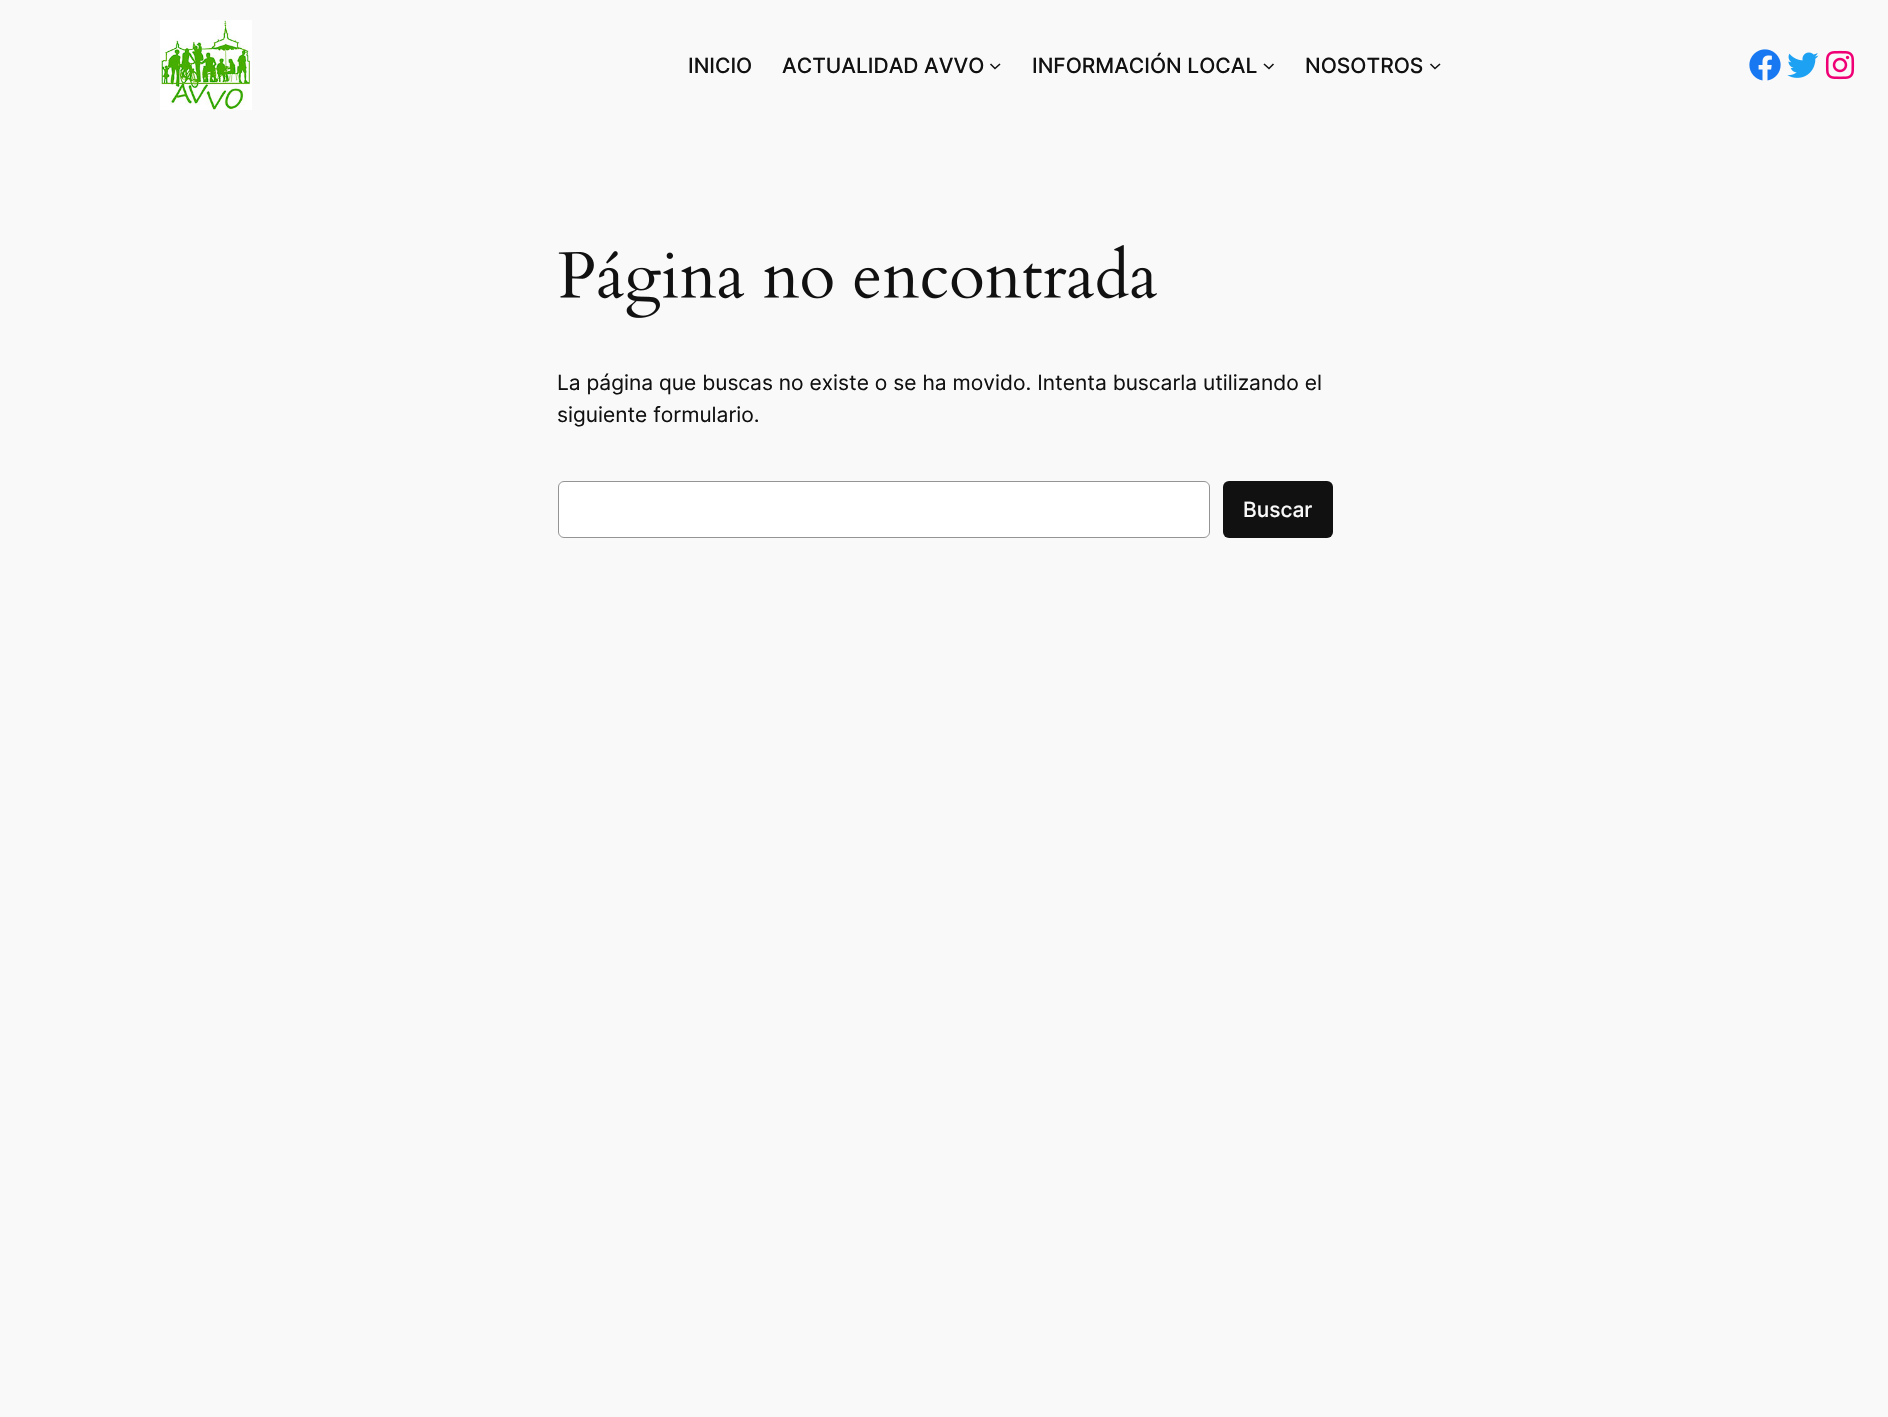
#include "include/core/SkBlurTypes.h"
#include "include/core/SkCanvas.h"
#include "include/core/SkData.h"
#include "include/core/SkFont.h"
#include "include/core/SkFontMgr.h"
#include "include/core/SkImage.h"
#include "include/core/SkMaskFilter.h"
#include "include/core/SkPaint.h"
#include "include/core/SkPathBuilder.h"
#include "include/core/SkTextBlob.h"
#include "include/effects/SkDashPathEffect.h"
#include "include/effects/SkGradientShader.h"
#include "include/utils/SkParsePath.h"

extern sk_sp<SkFontMgr> fontMgr;

void draw(SkCanvas* canvas) {
    SkPaint p;
    p.setAntiAlias(true);
    auto font = [&](const char* family, int weight, float size, bool italic = false) {
        SkFontStyle style(weight, SkFontStyle::kNormal_Width,
            italic ? SkFontStyle::kItalic_Slant : SkFontStyle::kUpright_Slant);
        SkFont result(fontMgr->matchFamilyStyle(family, style), size);
        result.setSubpixel(true);
        return result;
    };
    auto drawPhoto = [&](const char* path, float l, float t, float r, float b) {
        auto image = SkImages::DeferredFromEncodedData(SkData::MakeFromFileName(path));
        canvas->drawImageRect(image, SkRect::MakeLTRB(l, t, r, b), SkSamplingOptions());
    };
    canvas->clear(0xFFF9F9F9);
    drawPhoto("media/1.png", 160, 20, 252, 110);
    auto font1 = font("Inter", 500, 21);
    p.setColor(0xFF111111);
    canvas->drawString("INICIO", 688, 73, font1, p);
    canvas->drawString("ACTUALIDAD AVVO", 782, 73, font1, p);
    p.setStyle(SkPaint::kStroke_Style);
    p.setStrokeWidth(1.6f);
    canvas->drawPath(SkPathBuilder().moveTo(990.5f, 64).lineTo(995, 68.5f).lineTo(1000, 64).detach(), p);
    p.setStyle(SkPaint::kFill_Style);
    canvas->drawString("INFORMACIÓN LOCAL", 1032, 73, font1, p);
    p.setStyle(SkPaint::kStroke_Style);
    canvas->drawPath(SkPathBuilder().moveTo(1264, 64).lineTo(1269, 68.5f).lineTo(1273.5f, 64).detach(), p);
    p.setStyle(SkPaint::kFill_Style);
    canvas->drawString("NOSOTROS", 1305, 73, font1, p);
    p.setStyle(SkPaint::kStroke_Style);
    canvas->drawPath(SkPathBuilder().moveTo(1430.5f, 64).lineTo(1435, 68.5f).lineTo(1440, 64).detach(), p);
    drawPhoto("media/2.png", 1749, 49, 1781, 81);
    drawPhoto("media/3.png", 1787, 52, 1819, 78);
    drawPhoto("media/4.png", 1825, 50, 1855, 80);
    drawPhoto("media/5.png", 558, 245, 1157, 318);
    auto font2 = font("Inter", 400, 21);
    p.setStyle(SkPaint::kFill_Style);
    canvas->drawString("La página que buscas no existe o se ha movido. Intenta buscarla utilizando el", 557, 390, font2, p);
    canvas->drawString("siguiente formulario.", 557, 422, font2, p);
    p.setColor(0xFFFFFFFF);
    canvas->drawRoundRect(SkRect::MakeLTRB(558.5f, 481.5f, 1209.5f, 537.5f), 5.5f, 5.5f, p);
    p.setStyle(SkPaint::kStroke_Style);
    p.setStrokeWidth(1);
    p.setColor(0xFF949494);
    canvas->drawRoundRect(SkRect::MakeLTRB(558.5f, 481.5f, 1209.5f, 537.5f), 5.5f, 5.5f, p);
    p.setStyle(SkPaint::kFill_Style);
    p.setColor(0xFF111111);
    canvas->drawRoundRect(SkRect::MakeLTRB(1223, 481, 1333, 538), 6, 6, p);
    p.setColor(0xFFF9F9F9);
    canvas->drawString("Buscar", 1243, 517, font1, p);
}
